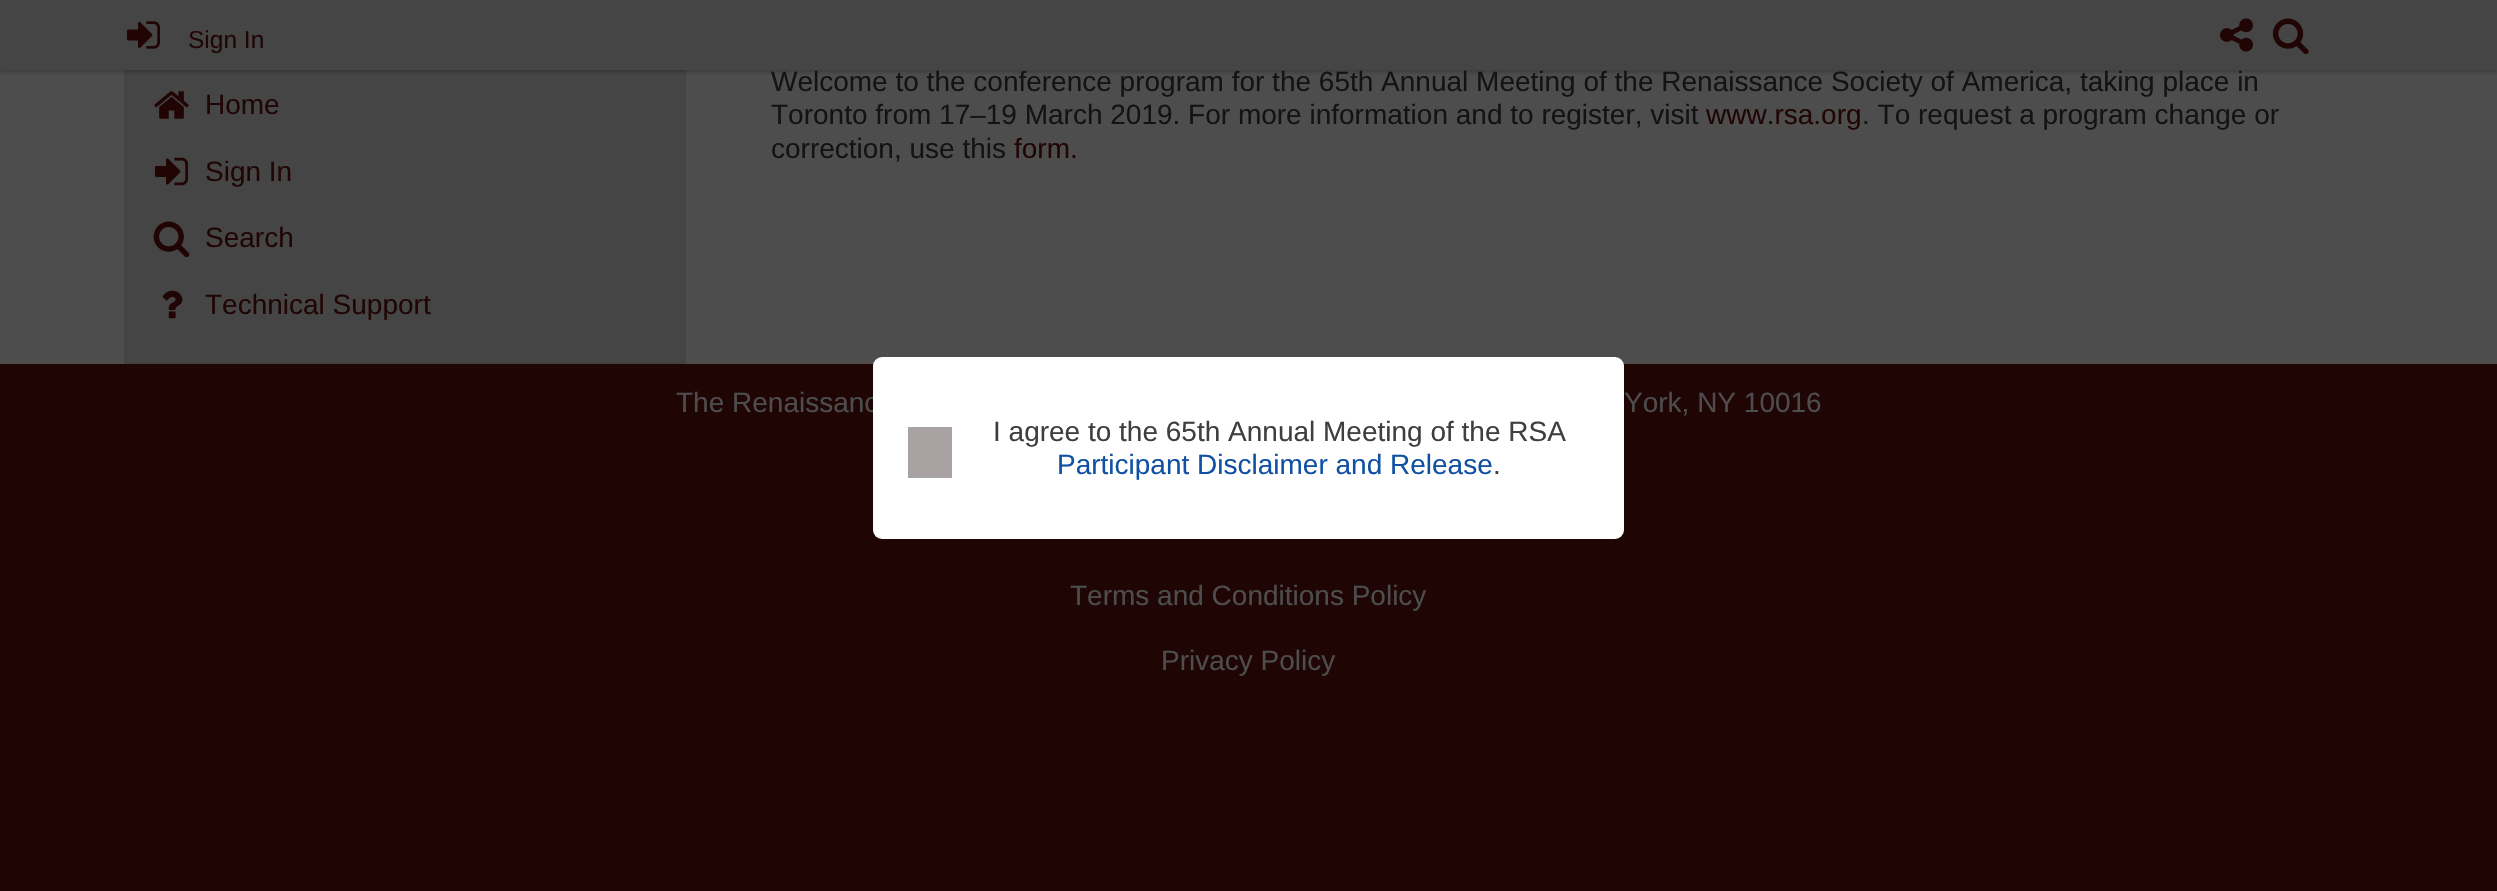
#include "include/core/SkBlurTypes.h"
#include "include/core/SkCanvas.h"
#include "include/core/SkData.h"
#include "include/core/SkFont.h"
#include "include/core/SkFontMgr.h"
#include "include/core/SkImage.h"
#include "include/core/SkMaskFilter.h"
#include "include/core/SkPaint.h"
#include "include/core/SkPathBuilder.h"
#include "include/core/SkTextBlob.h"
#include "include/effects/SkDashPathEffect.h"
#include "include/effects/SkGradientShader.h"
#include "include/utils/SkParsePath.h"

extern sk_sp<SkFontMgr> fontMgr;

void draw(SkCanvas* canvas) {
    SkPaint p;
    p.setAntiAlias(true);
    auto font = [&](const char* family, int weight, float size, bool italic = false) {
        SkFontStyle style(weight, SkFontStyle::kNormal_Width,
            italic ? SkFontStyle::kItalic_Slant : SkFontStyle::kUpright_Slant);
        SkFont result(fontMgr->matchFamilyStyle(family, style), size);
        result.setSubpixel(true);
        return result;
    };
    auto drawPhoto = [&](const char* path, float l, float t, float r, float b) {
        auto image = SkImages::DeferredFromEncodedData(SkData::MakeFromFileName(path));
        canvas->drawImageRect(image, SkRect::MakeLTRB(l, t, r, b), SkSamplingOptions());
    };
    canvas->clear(0xFF4D4D4D);
    p.setColor(0xFF454545);
    canvas->drawRect(SkRect::MakeLTRB(124, 70, 686, 362), p);
    p.setColor(0x3D000000);
    p.setMaskFilter(SkMaskFilter::MakeBlur(kNormal_SkBlurStyle, 2));
    canvas->drawRect(SkRect::MakeLTRB(0, 2, 2497, 72), p);
    p.setMaskFilter(nullptr);
    p.setColor(0xFF454545);
    canvas->drawRect(SkRect::MakeLTRB(0, 0, 2497, 70), p);
    drawPhoto("media/1.png", 127, 21, 160, 49);
    auto font1 = font("Liberation Sans", 400, 24.5f);
    p.setColor(0xFF200505);
    canvas->drawString("Sign In", 188, 48, font1, p);
    drawPhoto("media/2.png", 2220, 18, 2253, 52);
    drawPhoto("media/3.png", 2272, 18, 2309, 54);
    p.setColor(0xFF434242);
    canvas->drawRect(SkRect::MakeLTRB(124, 362, 686, 364), p);
    drawPhoto("media/4.png", 154, 91, 189, 119);
    auto font2 = font("Liberation Sans", 400, 28);
    p.setColor(0xFF200505);
    canvas->drawString("Home", 205, 114, font2, p);
    drawPhoto("media/5.png", 155, 157, 188, 186);
    canvas->drawString("Sign In", 205, 181, font2, p);
    drawPhoto("media/6.png", 153, 221, 190, 257);
    canvas->drawString("Search", 205, 247, font2, p);
    drawPhoto("media/7.png", 162, 290, 183, 319);
    canvas->drawString("Technical Support", 205, 314, font2, p);
    p.setColor(0xFF131313);
    canvas->drawString("Welcome to the conference program for the 65th Annual Meeting of the Renaissance Society of America, taking place in", 771, 91, font2, p);
    canvas->drawString("Toronto from 17–19 March 2019. For more information and to register, visit", 771, 124, font2, p);
    p.setColor(0xFF200505);
    canvas->drawString("www.rsa.org", 1706, 124, font2, p);
    p.setColor(0xFF131313);
    canvas->drawString(". To request a program change or", 1862, 124, font2, p);
    canvas->drawString("correction, use this", 771, 158, font2, p);
    p.setColor(0xFF200505);
    canvas->drawString("form.", 1014, 158, font2, p);
    canvas->drawRect(SkRect::MakeLTRB(0, 364, 2497, 891), p);
    p.setColor(0xFF4D4D4D);
    {
        const struct { const char* s; float x, y; } items[] = {
            {"The Renaissanc", 676, 412},
            {"York, NY 10016", 1624, 412},
            {"Terms and Conditions Policy", 1070, 605},
            {"Privacy Policy", 1161, 670},
        };
        for (auto [s, x, y] : items) {
            canvas->drawString(s, x, y, font2, p);
        }
    }
    p.setColor(0xFFFFFFFF);
    canvas->drawRoundRect(SkRect::MakeLTRB(873, 357, 1624, 539), 9, 9, p);
    p.setColor(0xFFA9A2A2);
    canvas->drawRect(SkRect::MakeLTRB(908, 427, 952, 478), p);
    p.setColor(0xFF3F3F3F);
    canvas->drawString("I agree to the 65th Annual Meeting of the RSA", 993, 441, font2, p);
    p.setColor(0xFF1151A4);
    canvas->drawString("Participant Disclaimer and Release", 1057, 474, font2, p);
    p.setColor(0xFF3F3F3F);
    canvas->drawString(".", 1493, 474, font2, p);
}
